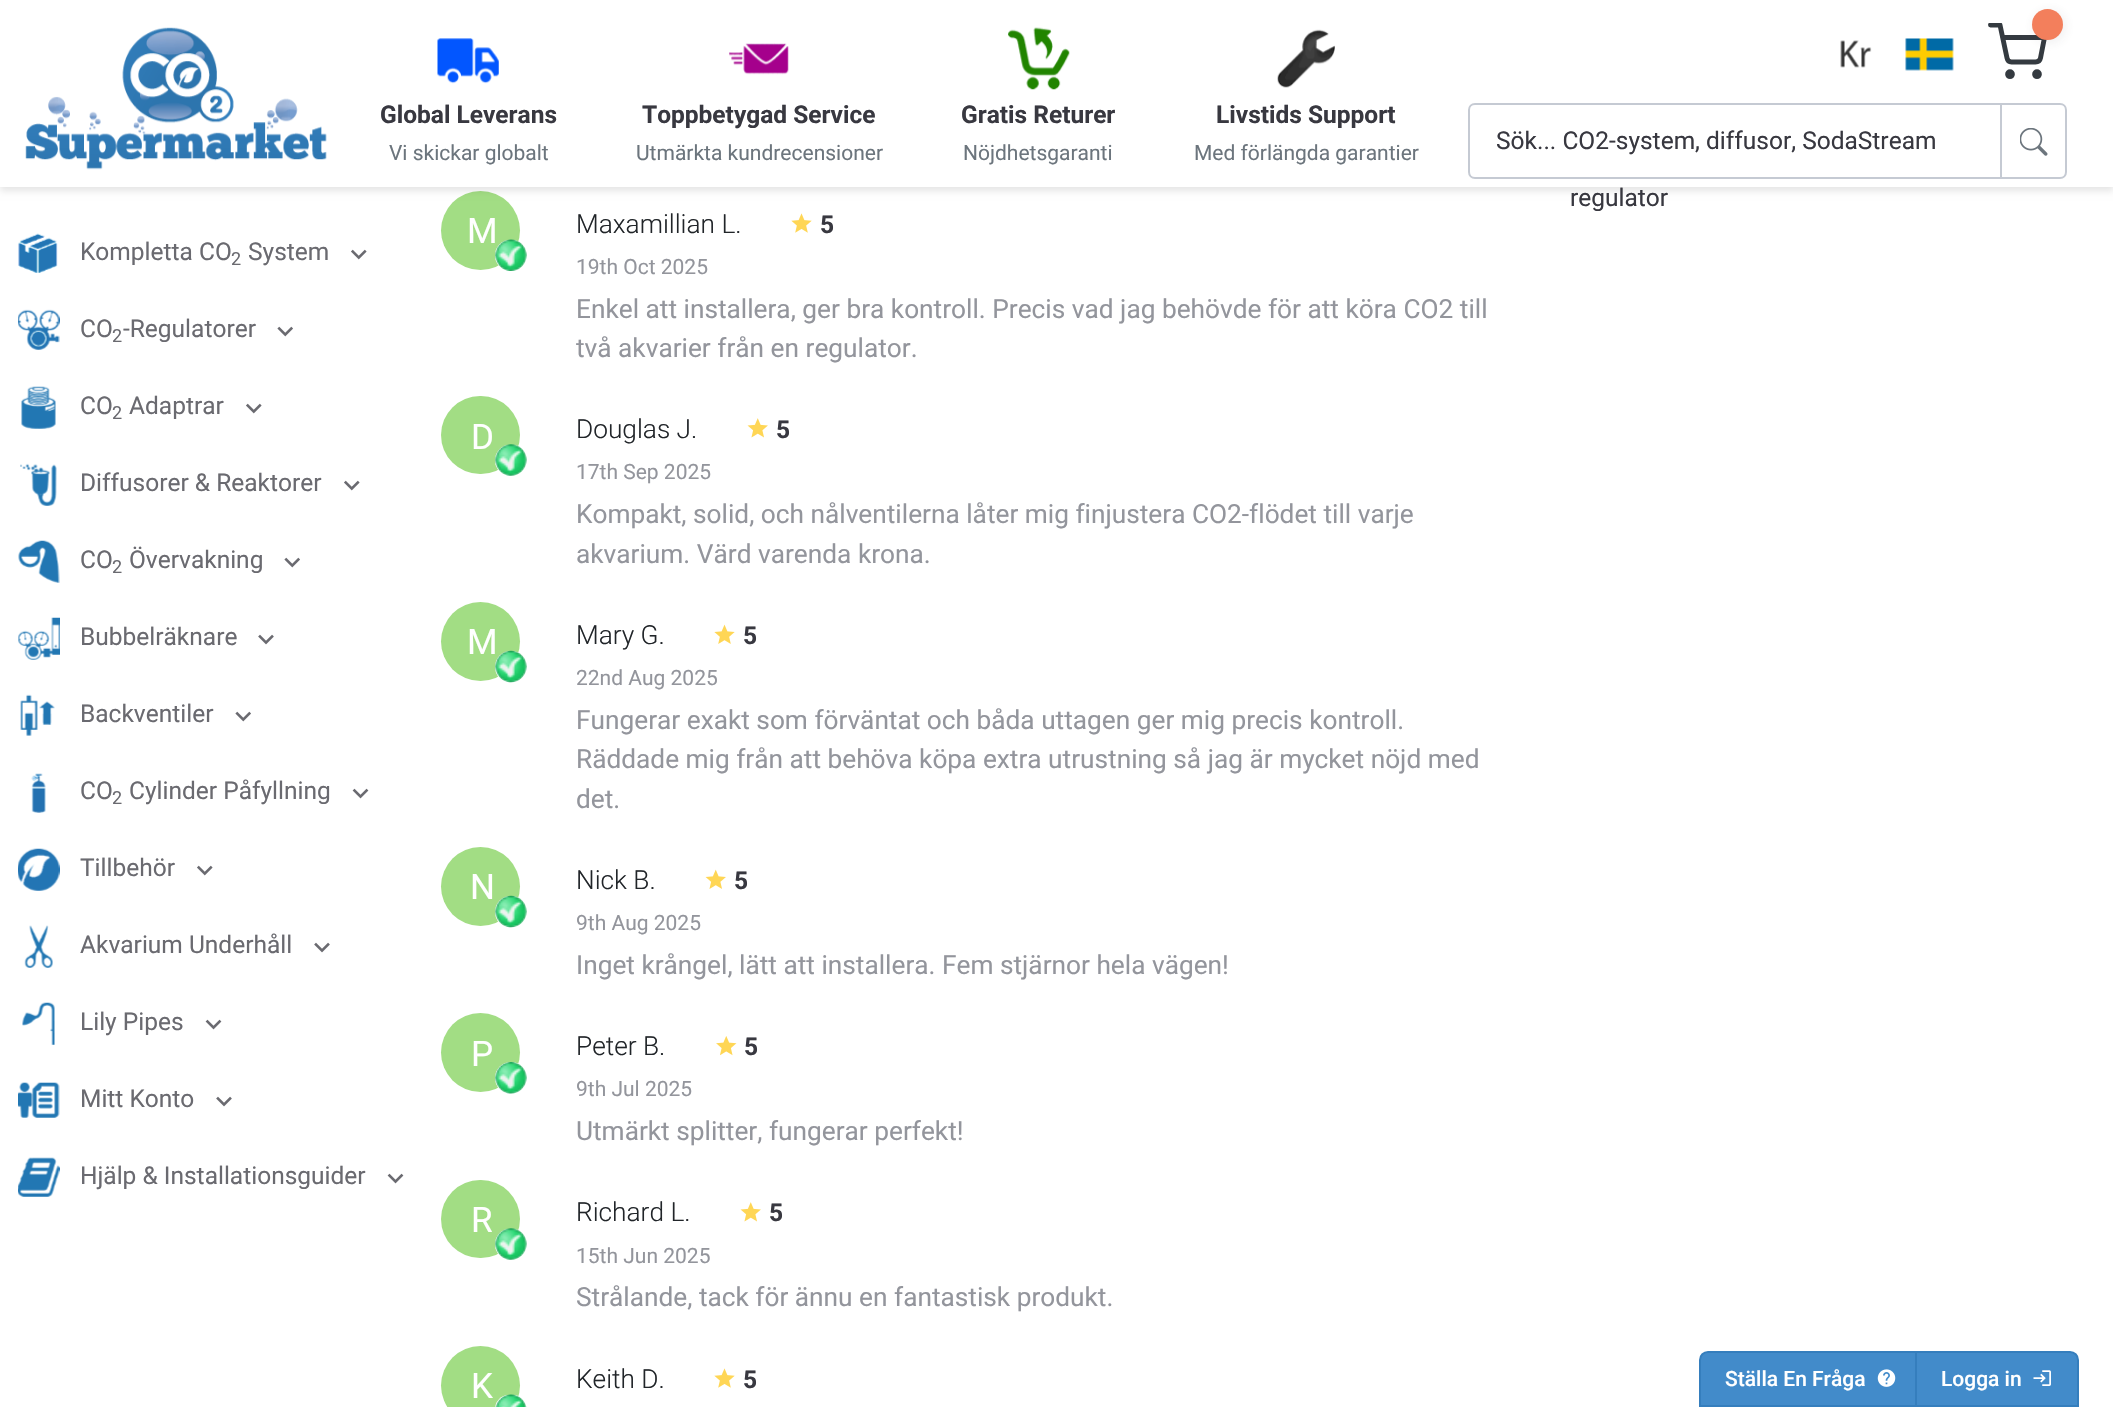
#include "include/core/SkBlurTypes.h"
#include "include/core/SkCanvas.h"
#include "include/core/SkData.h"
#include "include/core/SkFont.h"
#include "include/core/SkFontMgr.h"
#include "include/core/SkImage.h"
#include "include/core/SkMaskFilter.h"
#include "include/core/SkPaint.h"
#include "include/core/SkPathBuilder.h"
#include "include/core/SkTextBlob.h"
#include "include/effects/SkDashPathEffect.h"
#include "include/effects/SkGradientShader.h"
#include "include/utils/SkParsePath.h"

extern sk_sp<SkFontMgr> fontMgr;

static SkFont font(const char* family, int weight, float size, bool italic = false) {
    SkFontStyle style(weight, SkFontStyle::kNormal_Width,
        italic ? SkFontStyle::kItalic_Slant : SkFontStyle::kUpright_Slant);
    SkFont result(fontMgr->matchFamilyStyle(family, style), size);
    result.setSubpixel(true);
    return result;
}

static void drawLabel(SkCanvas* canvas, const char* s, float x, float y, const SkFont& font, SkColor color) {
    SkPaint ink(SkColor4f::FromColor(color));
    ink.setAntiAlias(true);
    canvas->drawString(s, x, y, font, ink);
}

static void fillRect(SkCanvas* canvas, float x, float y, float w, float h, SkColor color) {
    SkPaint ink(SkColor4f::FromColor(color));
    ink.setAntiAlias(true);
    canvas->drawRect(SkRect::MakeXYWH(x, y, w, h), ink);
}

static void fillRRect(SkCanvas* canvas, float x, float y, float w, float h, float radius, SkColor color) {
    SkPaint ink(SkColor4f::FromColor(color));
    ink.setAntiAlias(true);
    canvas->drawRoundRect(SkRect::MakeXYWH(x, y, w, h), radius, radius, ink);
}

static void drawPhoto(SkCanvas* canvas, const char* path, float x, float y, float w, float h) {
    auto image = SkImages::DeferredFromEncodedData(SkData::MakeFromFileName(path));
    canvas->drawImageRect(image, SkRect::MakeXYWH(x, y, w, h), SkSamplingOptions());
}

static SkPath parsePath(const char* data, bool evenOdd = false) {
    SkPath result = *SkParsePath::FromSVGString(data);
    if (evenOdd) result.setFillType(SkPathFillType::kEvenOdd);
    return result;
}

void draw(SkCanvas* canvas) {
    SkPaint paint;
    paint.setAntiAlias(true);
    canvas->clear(0xFFFFFFFF);
    paint.setColor(0xFFA2DD84);
    canvas->drawCircle(480.5f, 230.5f, 39.5f, paint);
    paint.setColor(0x1A000000);
    paint.setMaskFilter(SkMaskFilter::MakeBlur(kNormal_SkBlurStyle, 3.5f));
    canvas->drawRect(SkRect::MakeXYWH(0, 4, 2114, 187), paint);
    paint.setMaskFilter(nullptr);
    fillRect(canvas, 0, 0, 2113, 187, 0xFFFFFFFF);
    drawPhoto(canvas, "assets/img1.png", 25, 27, 302, 143);
    drawPhoto(canvas, "assets/img2.png", 437, 38, 62, 46);
    SkFont font1 = font("Roboto", 700, 24.5f);
    drawLabel(canvas, "Global Leverans", 380, 123, font1, 0xFF383840);
    SkFont font2 = font("Roboto", 400, 21);
    drawLabel(canvas, "Vi skickar globalt", 389, 160, font2, 0xFF6C757D);
    drawPhoto(canvas, "assets/img3.png", 729, 43, 60, 32);
    drawLabel(canvas, "Toppbetygad Service", 642, 123, font1, 0xFF383840);
    drawLabel(canvas, "Utmärkta kundrecensioner", 636, 160, font2, 0xFF6C757D);
    drawPhoto(canvas, "assets/img4.png", 1008, 27, 62, 63);
    drawLabel(canvas, "Gratis Returer", 961, 123, font1, 0xFF383840);
    drawLabel(canvas, "Nöjdhetsgaranti", 963, 160, font2, 0xFF6C757D);
    drawPhoto(canvas, "assets/img5.png", 1277, 29, 58, 59);
    drawLabel(canvas, "Livstids Support", 1216, 123, font1, 0xFF383840);
    drawLabel(canvas, "Med förlängda garantier", 1194, 160, font2, 0xFF6C757D);
    drawPhoto(canvas, "assets/img6.png", 1840, 40, 32, 28);
    drawPhoto(canvas, "assets/img7.png", 1905, 38, 49, 33);
    canvas->save();
    canvas->clipRect(SkRect::MakeXYWH(1988, 23, 61, 61));
    paint.setStroke(true);
    paint.setStrokeWidth(4.9f);
    paint.setStrokeCap(SkPaint::kRound_Cap);
    paint.setStrokeJoin(SkPaint::kRound_Join);
    paint.setColor(0xFF343A40);
    canvas->drawPath(parsePath("M1990.5 25H2000L2007 58C2007.5 60.5 2009.5 62 2011.5 62H2035.5C2038 62 2040 60.5 2040.5 58L2044.5 37.5H2002.5"), paint);
    canvas->restore();
    paint.setStroke(false);
    paint.setColor(0x17383840);
    paint.setMaskFilter(SkMaskFilter::MakeBlur(kNormal_SkBlurStyle, 6));
    canvas->drawRoundRect(SkRect::MakeXYWH(2034, 11, 31, 31), 15.5f, 15.5f, paint);
    paint.setMaskFilter(nullptr);
    paint.setColor(0xFFF37F5C);
    canvas->drawCircle(2047.5f, 24.5f, 15.5f, paint);
    paint.setStroke(true);
    paint.setStrokeCap(SkPaint::kButt_Cap);
    paint.setStrokeJoin(SkPaint::kMiter_Join);
    paint.setColor(0xFF343A40);
    canvas->drawCircle(2010, 74.2f, 2.4f, paint);
    canvas->drawCircle(2037, 74.2f, 2.4f, paint);
    paint.setStrokeWidth(2);
    paint.setColor(0xFFC5CAD3);
    canvas->drawPath(parsePath("M1475 104H2001V178H1475C1471.5 178 1469 175.5 1469 172V110C1469 106.5 1471.5 104 1475 104Z"), paint);
    SkFont font3 = font("Roboto", 400, 24.5f);
    drawLabel(canvas, "Sök... CO2-system, diffusor, SodaStream", 1496, 149, font3, 0xFF383840);
    canvas->drawPath(parsePath("M2001 104H2060C2063.5 104 2066 106.5 2066 110V172C2066 175.5 2063.5 178 2060 178H2001Z"), paint);
    drawPhoto(canvas, "assets/img8.png", 2020, 128, 28, 28);
    drawPhoto(canvas, "assets/img9.png", 18, 233, 40, 40);
    drawLabel(canvas, "Kompletta CO", 80, 260, font3, 0xFF6A6A70);
    SkFont font4 = font("Roboto", 400, 18);
    drawLabel(canvas, "2", 231, 265, font4, 0xFF6A6A70);
    drawLabel(canvas, "System", 248, 260, font3, 0xFF6A6A70);
    drawPhoto(canvas, "assets/img10.png", 351, 249, 16, 11);
    drawPhoto(canvas, "assets/img11.png", 18, 309, 42, 41);
    drawLabel(canvas, "CO", 80, 337, font3, 0xFF6A6A70);
    drawLabel(canvas, "2", 112, 342, font4, 0xFF6A6A70);
    drawLabel(canvas, "-Regulatorer", 123, 337, font3, 0xFF6A6A70);
    drawPhoto(canvas, "assets/img12.png", 277, 326, 16, 11);
    drawPhoto(canvas, "assets/img13.png", 21, 386, 35, 43);
    drawLabel(canvas, "CO", 80, 414, font3, 0xFF6A6A70);
    drawLabel(canvas, "2", 112, 419, font4, 0xFF6A6A70);
    drawLabel(canvas, "Adaptrar", 129, 414, font3, 0xFF6A6A70);
    drawPhoto(canvas, "assets/img10.png", 246, 403, 16, 11);
    drawPhoto(canvas, "assets/img14.png", 20, 463, 37, 43);
    drawLabel(canvas, "Diffusorer & Reaktorer", 80, 491, font3, 0xFF6A6A70);
    drawPhoto(canvas, "assets/img10.png", 344, 480, 16, 11);
    drawPhoto(canvas, "assets/img15.png", 18, 540, 42, 43);
    drawLabel(canvas, "CO", 80, 568, font3, 0xFF6A6A70);
    drawLabel(canvas, "2", 112, 573, font4, 0xFF6A6A70);
    drawLabel(canvas, "Övervakning", 129, 568, font3, 0xFF6A6A70);
    drawPhoto(canvas, "assets/img12.png", 284, 557, 16, 11);
    drawPhoto(canvas, "assets/img16.png", 18, 617, 42, 43);
    drawLabel(canvas, "Bubbelräknare", 80, 645, font3, 0xFF6A6A70);
    drawPhoto(canvas, "assets/img17.png", 258, 634, 16, 11);
    drawPhoto(canvas, "assets/img18.png", 20, 694, 35, 42);
    drawLabel(canvas, "Backventiler", 80, 722, font3, 0xFF6A6A70);
    drawPhoto(canvas, "assets/img12.png", 235, 711, 16, 11);
    drawPhoto(canvas, "assets/img19.png", 31, 773, 15, 40);
    drawLabel(canvas, "CO", 80, 799, font3, 0xFF6A6A70);
    drawLabel(canvas, "2", 112, 804, font4, 0xFF6A6A70);
    drawLabel(canvas, "Cylinder Påfyllning", 129, 799, font3, 0xFF6A6A70);
    drawPhoto(canvas, "assets/img20.png", 352, 788, 17, 11);
    drawPhoto(canvas, "assets/img21.png", 18, 848, 42, 43);
    drawLabel(canvas, "Tillbehör", 80, 876, font3, 0xFF6A6A70);
    drawPhoto(canvas, "assets/img10.png", 197, 865, 16, 11);
    drawPhoto(canvas, "assets/img22.png", 24, 925, 29, 43);
    drawLabel(canvas, "Akvarium Underhåll", 80, 953, font3, 0xFF6A6A70);
    drawPhoto(canvas, "assets/img17.png", 314, 942, 16, 11);
    drawPhoto(canvas, "assets/img23.png", 22, 1002, 33, 43);
    drawLabel(canvas, "Lily Pipes", 80, 1030, font3, 0xFF6A6A70);
    drawPhoto(canvas, "assets/img20.png", 205, 1019, 17, 11);
    drawPhoto(canvas, "assets/img24.png", 18, 1082, 42, 36);
    drawLabel(canvas, "Mitt Konto", 80, 1107, font3, 0xFF6A6A70);
    drawPhoto(canvas, "assets/img17.png", 216, 1096, 16, 11);
    drawPhoto(canvas, "assets/img25.png", 18, 1157, 42, 40);
    drawLabel(canvas, "Hjälp & Installationsguider", 80, 1184, font3, 0xFF6A6A70);
    drawPhoto(canvas, "assets/img20.png", 387, 1173, 17, 11);
    drawLabel(canvas, "regulator", 1570, 206, font3, 0xFF383840);
    SkFont font5 = font("Roboto", 400, 35);
    drawLabel(canvas, "M", 467, 243, font5, 0xFFFFFFFF);
    fillRRect(canvas, 495, 240, 32, 31, 15.5f, 0xFFFFFFFF);
    drawPhoto(canvas, "assets/img26.png", 495, 239, 32, 32);
    SkFont font6 = font("Roboto", 300, 26.25f);
    drawLabel(canvas, "Maxamillian L.", 576, 233, font6, 0xFF212529);
    drawPhoto(canvas, "assets/img27.png", 791, 213, 21, 20);
    drawLabel(canvas, "5", 820, 233, font1, 0xFF383840);
    drawLabel(canvas, "19th Oct 2025", 576, 274, font2, 0xFF93959C);
    SkFont font7 = font("Roboto", 400, 26.25f);
    drawLabel(canvas, "Enkel att installera, ger bra kontroll. Precis vad jag behövde för att köra CO2 till", 576, 318, font7, 0xFF93959C);
    drawLabel(canvas, "två akvarier från en regulator.", 576, 357, font7, 0xFF93959C);
    fillRRect(canvas, 441, 396, 79, 78, 39, 0xFFA2DD84);
    drawLabel(canvas, "D", 471, 449, font5, 0xFFFFFFFF);
    fillRRect(canvas, 495, 445, 32, 31, 15.5f, 0xFFFFFFFF);
    drawPhoto(canvas, "assets/img28.png", 495, 444, 32, 32);
    drawLabel(canvas, "Douglas J.", 576, 438, font6, 0xFF212529);
    drawPhoto(canvas, "assets/img29.png", 747, 418, 21, 20);
    drawLabel(canvas, "5", 776, 438, font1, 0xFF383840);
    drawLabel(canvas, "17th Sep 2025", 576, 479, font2, 0xFF93959C);
    drawLabel(canvas, "Kompakt, solid, och nålventilerna låter mig finjustera CO2-flödet till varje", 576, 523, font7, 0xFF93959C);
    drawLabel(canvas, "akvarium. Värd varenda krona.", 576, 563, font7, 0xFF93959C);
    paint.setStroke(false);
    paint.setColor(0xFFA2DD84);
    canvas->drawCircle(480.5f, 641.5f, 39.5f, paint);
    drawLabel(canvas, "M", 467, 654, font5, 0xFFFFFFFF);
    paint.setColor(0xFFFFFFFF);
    canvas->drawCircle(511, 667, 16, paint);
    drawPhoto(canvas, "assets/img30.png", 495, 650, 32, 33);
    drawLabel(canvas, "Mary G.", 576, 644, font6, 0xFF212529);
    drawPhoto(canvas, "assets/img31.png", 714, 624, 21, 20);
    drawLabel(canvas, "5", 743, 644, font1, 0xFF383840);
    drawLabel(canvas, "22nd Aug 2025", 576, 685, font2, 0xFF93959C);
    drawLabel(canvas, "Fungerar exakt som förväntat och båda uttagen ger mig precis kontroll.", 576, 729, font7, 0xFF93959C);
    drawLabel(canvas, "Räddade mig från att behöva köpa extra utrustning så jag är mycket nöjd med", 576, 768, font7, 0xFF93959C);
    drawLabel(canvas, "det.", 576, 808, font7, 0xFF93959C);
    paint.setColor(0xFFA2DD84);
    canvas->drawCircle(480.5f, 886.5f, 39.5f, paint);
    drawLabel(canvas, "N", 470, 899, font5, 0xFFFFFFFF);
    paint.setColor(0xFFFFFFFF);
    canvas->drawCircle(511, 912, 16, paint);
    drawPhoto(canvas, "assets/img30.png", 495, 895, 32, 33);
    drawLabel(canvas, "Nick B.", 576, 889, font6, 0xFF212529);
    drawPhoto(canvas, "assets/img32.png", 705, 869, 21, 20);
    drawLabel(canvas, "5", 734, 889, font1, 0xFF383840);
    drawLabel(canvas, "9th Aug 2025", 576, 930, font2, 0xFF93959C);
    drawLabel(canvas, "Inget krångel, lätt att installera. Fem stjärnor hela vägen!", 576, 974, font7, 0xFF93959C);
    paint.setColor(0xFFA2DD84);
    canvas->drawCircle(480.5f, 1052.5f, 39.5f, paint);
    drawLabel(canvas, "P", 471, 1066, font5, 0xFFFFFFFF);
    paint.setColor(0xFFFFFFFF);
    canvas->drawCircle(511, 1078, 16, paint);
    drawPhoto(canvas, "assets/img33.png", 495, 1062, 32, 32);
    drawLabel(canvas, "Peter B.", 576, 1055, font6, 0xFF212529);
    drawPhoto(canvas, "assets/img34.png", 716, 1036, 21, 20);
    drawLabel(canvas, "5", 744, 1055, font1, 0xFF383840);
    drawLabel(canvas, "9th Jul 2025", 576, 1096, font2, 0xFF93959C);
    drawLabel(canvas, "Utmärkt splitter, fungerar perfekt!", 576, 1140, font7, 0xFF93959C);
    fillRRect(canvas, 441, 1180, 79, 78, 39, 0xFFA2DD84);
    drawLabel(canvas, "R", 471, 1232, font5, 0xFFFFFFFF);
    fillRRect(canvas, 495, 1229, 32, 31, 15.5f, 0xFFFFFFFF);
    drawPhoto(canvas, "assets/img28.png", 495, 1228, 32, 32);
    drawLabel(canvas, "Richard L.", 576, 1221, font6, 0xFF212529);
    drawPhoto(canvas, "assets/img29.png", 740, 1202, 21, 20);
    drawLabel(canvas, "5", 769, 1221, font1, 0xFF383840);
    drawLabel(canvas, "15th Jun 2025", 576, 1263, font2, 0xFF93959C);
    drawLabel(canvas, "Strålande, tack för ännu en fantastisk produkt.", 576, 1306, font7, 0xFF93959C);
    paint.setColor(0xFFA2DD84);
    canvas->drawCircle(480.5f, 1385.5f, 39.5f, paint);
    drawLabel(canvas, "K", 471, 1398, font5, 0xFFFFFFFF);
    fillRRect(canvas, 495, 1395, 32, 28, 15.5f, 0xFFFFFFFF);
    drawPhoto(canvas, "assets/img35.png", 495, 1394, 32, 13);
    drawLabel(canvas, "Keith D.", 576, 1388, font6, 0xFF212529);
    drawPhoto(canvas, "assets/img27.png", 714, 1368, 21, 20);
    drawLabel(canvas, "5", 743, 1388, font1, 0xFF383840);
    paint.setColor(0xFF428BCA);
    canvas->drawPath(parsePath("M1708 1352H1922V1406H1700V1360C1700 1355.5 1703.5 1352 1708 1352Z"), paint);
    paint.setStroke(true);
    paint.setColor(0xFF357EBD);
    canvas->drawPath(parsePath("M1708 1352H1922V1406H1700V1360C1700 1355.5 1703.5 1352 1708 1352Z"), paint);
    SkFont font8 = font("Roboto", 500, 21);
    drawLabel(canvas, "Ställa En Fråga", 1725, 1386, font8, 0xFFFFFFFF);
    drawPhoto(canvas, "assets/img36.png", 1877, 1369, 19, 18);
    paint.setStroke(false);
    paint.setColor(0xFF428BCA);
    canvas->drawPath(parsePath("M1916 1352H2070C2074.5 1352 2078 1355.5 2078 1360V1406H1916Z"), paint);
    paint.setStroke(true);
    paint.setColor(0xFF357EBD);
    canvas->drawPath(parsePath("M1916 1352H2070C2074.5 1352 2078 1355.5 2078 1360V1406H1916Z"), paint);
    drawLabel(canvas, "Logga in", 1941, 1386, font8, 0xFFFFFFFF);
    drawPhoto(canvas, "assets/img37.png", 2033, 1370, 18, 16);
}
